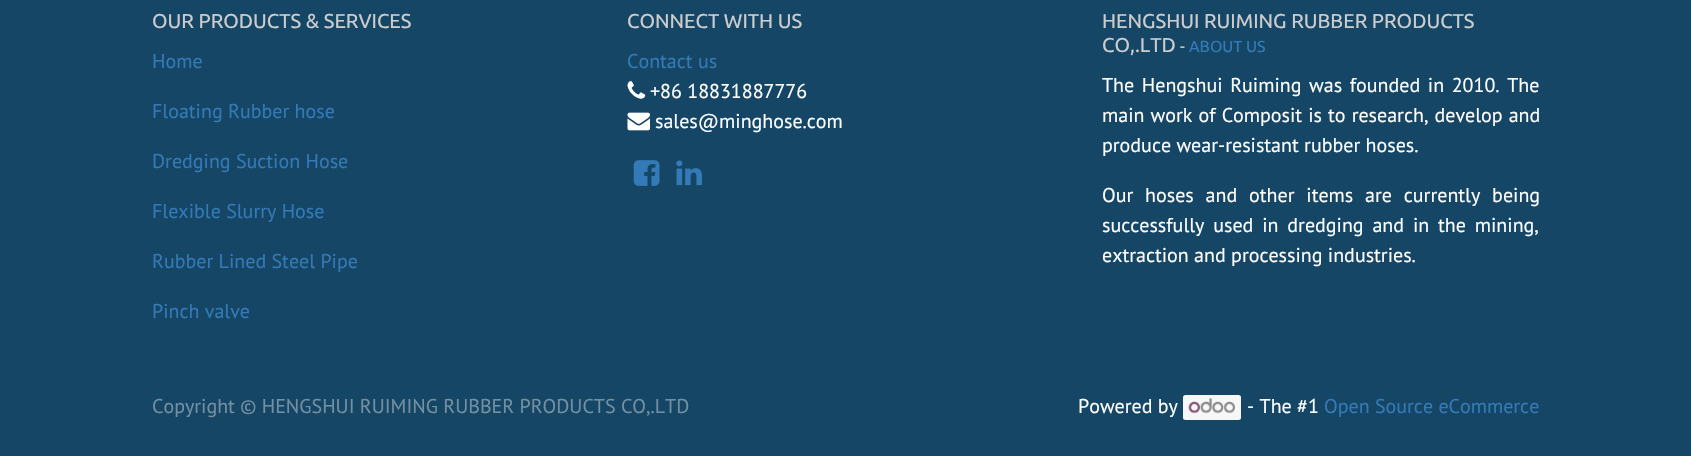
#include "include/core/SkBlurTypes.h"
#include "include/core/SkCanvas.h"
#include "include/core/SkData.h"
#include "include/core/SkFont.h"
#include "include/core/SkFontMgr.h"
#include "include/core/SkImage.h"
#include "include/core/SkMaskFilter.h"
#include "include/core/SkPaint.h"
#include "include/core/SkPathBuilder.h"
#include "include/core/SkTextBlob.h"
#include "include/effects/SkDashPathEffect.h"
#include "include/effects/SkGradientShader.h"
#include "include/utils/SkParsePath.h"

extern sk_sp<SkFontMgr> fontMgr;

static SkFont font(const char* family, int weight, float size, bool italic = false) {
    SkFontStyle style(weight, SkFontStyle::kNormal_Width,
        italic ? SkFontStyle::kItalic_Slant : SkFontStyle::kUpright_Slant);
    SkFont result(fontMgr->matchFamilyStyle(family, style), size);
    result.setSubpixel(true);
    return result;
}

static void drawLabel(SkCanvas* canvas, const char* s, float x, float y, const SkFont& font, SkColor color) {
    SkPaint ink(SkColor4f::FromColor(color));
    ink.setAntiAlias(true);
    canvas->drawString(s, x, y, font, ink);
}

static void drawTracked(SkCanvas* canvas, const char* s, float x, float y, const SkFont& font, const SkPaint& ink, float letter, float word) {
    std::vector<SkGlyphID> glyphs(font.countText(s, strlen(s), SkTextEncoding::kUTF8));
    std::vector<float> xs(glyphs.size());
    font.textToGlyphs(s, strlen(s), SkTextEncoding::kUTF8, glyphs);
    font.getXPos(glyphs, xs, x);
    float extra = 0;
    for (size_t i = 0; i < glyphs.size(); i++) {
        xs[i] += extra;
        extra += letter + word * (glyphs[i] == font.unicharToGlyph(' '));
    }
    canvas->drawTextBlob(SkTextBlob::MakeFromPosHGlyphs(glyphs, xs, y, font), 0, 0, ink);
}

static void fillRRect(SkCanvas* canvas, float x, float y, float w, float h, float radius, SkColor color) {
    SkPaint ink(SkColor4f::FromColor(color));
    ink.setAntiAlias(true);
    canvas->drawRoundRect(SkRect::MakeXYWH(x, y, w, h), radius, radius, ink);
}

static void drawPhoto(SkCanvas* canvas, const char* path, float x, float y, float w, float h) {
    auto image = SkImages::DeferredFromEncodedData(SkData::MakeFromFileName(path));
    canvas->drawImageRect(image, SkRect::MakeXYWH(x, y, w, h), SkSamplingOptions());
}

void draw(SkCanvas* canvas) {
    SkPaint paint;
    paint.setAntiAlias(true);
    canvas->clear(0xFF164666);
    SkFont font1 = font("Ubuntu", 400, 20);
    drawLabel(canvas, "OUR PRODUCTS & SERVICES", 152, 28, font1, 0xFFCCCCCC);
    SkFont font2 = font("PT Sans", 400, 20);
    drawLabel(canvas, "Home", 152, 68, font2, 0xFF337AB7);
    drawLabel(canvas, "Floating Rubber hose", 152, 118, font2, 0xFF337AB7);
    drawLabel(canvas, "Dredging Suction Hose", 152, 168, font2, 0xFF337AB7);
    drawLabel(canvas, "Flexible Slurry Hose", 152, 218, font2, 0xFF337AB7);
    drawLabel(canvas, "Rubber Lined Steel Pipe", 152, 268, font2, 0xFF337AB7);
    drawLabel(canvas, "Pinch valve", 152, 318, font2, 0xFF337AB7);
    drawLabel(canvas, "CONNECT WITH US", 627, 28, font1, 0xFFCCCCCC);
    drawLabel(canvas, "Contact us", 627, 68, font2, 0xFF337AB7);
    drawPhoto(canvas, "assets/img1.png", 627, 81, 19, 18);
    drawLabel(canvas, "+86 18831887776", 650, 98, font2, 0xFFFFFFFF);
    drawPhoto(canvas, "assets/img2.png", 627, 112, 23, 19);
    drawLabel(canvas, "sales@minghose.com", 655, 128, font2, 0xFFFFFFFF);
    drawPhoto(canvas, "assets/img3.png", 633, 160, 27, 26);
    drawPhoto(canvas, "assets/img4.png", 676, 160, 26, 26);
    drawLabel(canvas, "HENGSHUI RUIMING RUBBER PRODUCTS", 1102, 28, font1, 0xFFCCCCCC);
    drawLabel(canvas, "CO,.LTD", 1102, 52, font1, 0xFFCCCCCC);
    SkFont font3 = font("Ubuntu", 400, 16);
    drawLabel(canvas, "-", 1180, 52, font3, 0xFFCCCCCC);
    drawLabel(canvas, "ABOUT US", 1189, 52, font3, 0xFF337AB7);
    paint.setColor(0xFFFFFFFF);
    drawTracked(canvas, "The Hengshui Ruiming was founded in 2010. The", 1102, 92, font2, paint, 0, 2.25f);
    drawTracked(canvas, "main work of Composit is to research, develop and", 1102, 122, font2, paint, 0, 0.75f);
    drawLabel(canvas, "produce wear-resistant rubber hoses.", 1102, 152, font2, 0xFFFFFFFF);
    drawTracked(canvas, "Our hoses and other items are currently being", 1102, 202, font2, paint, 0, 6.5f);
    drawTracked(canvas, "successfully used in dredging and in the mining,", 1102, 232, font2, paint, 0, 3.5f);
    drawLabel(canvas, "extraction and processing industries.", 1102, 262, font2, 0xFFFFFFFF);
    drawLabel(canvas, "Copyright © HENGSHUI RUIMING RUBBER PRODUCTS CO,.LTD", 152, 413, font2, 0xFF7390A3);
    drawLabel(canvas, "Powered by", 1078, 413, font2, 0xFFFFFFFF);
    fillRRect(canvas, 1183, 395, 58, 25, 2.5f, 0xFFF7F7F7);
    drawPhoto(canvas, "assets/img5.png", 1188, 398, 47, 16);
    drawLabel(canvas, "- The #1", 1247, 413, font2, 0xFFFFFFFF);
    drawLabel(canvas, "Open Source eCommerce", 1324, 413, font2, 0xFF337AB7);
}
